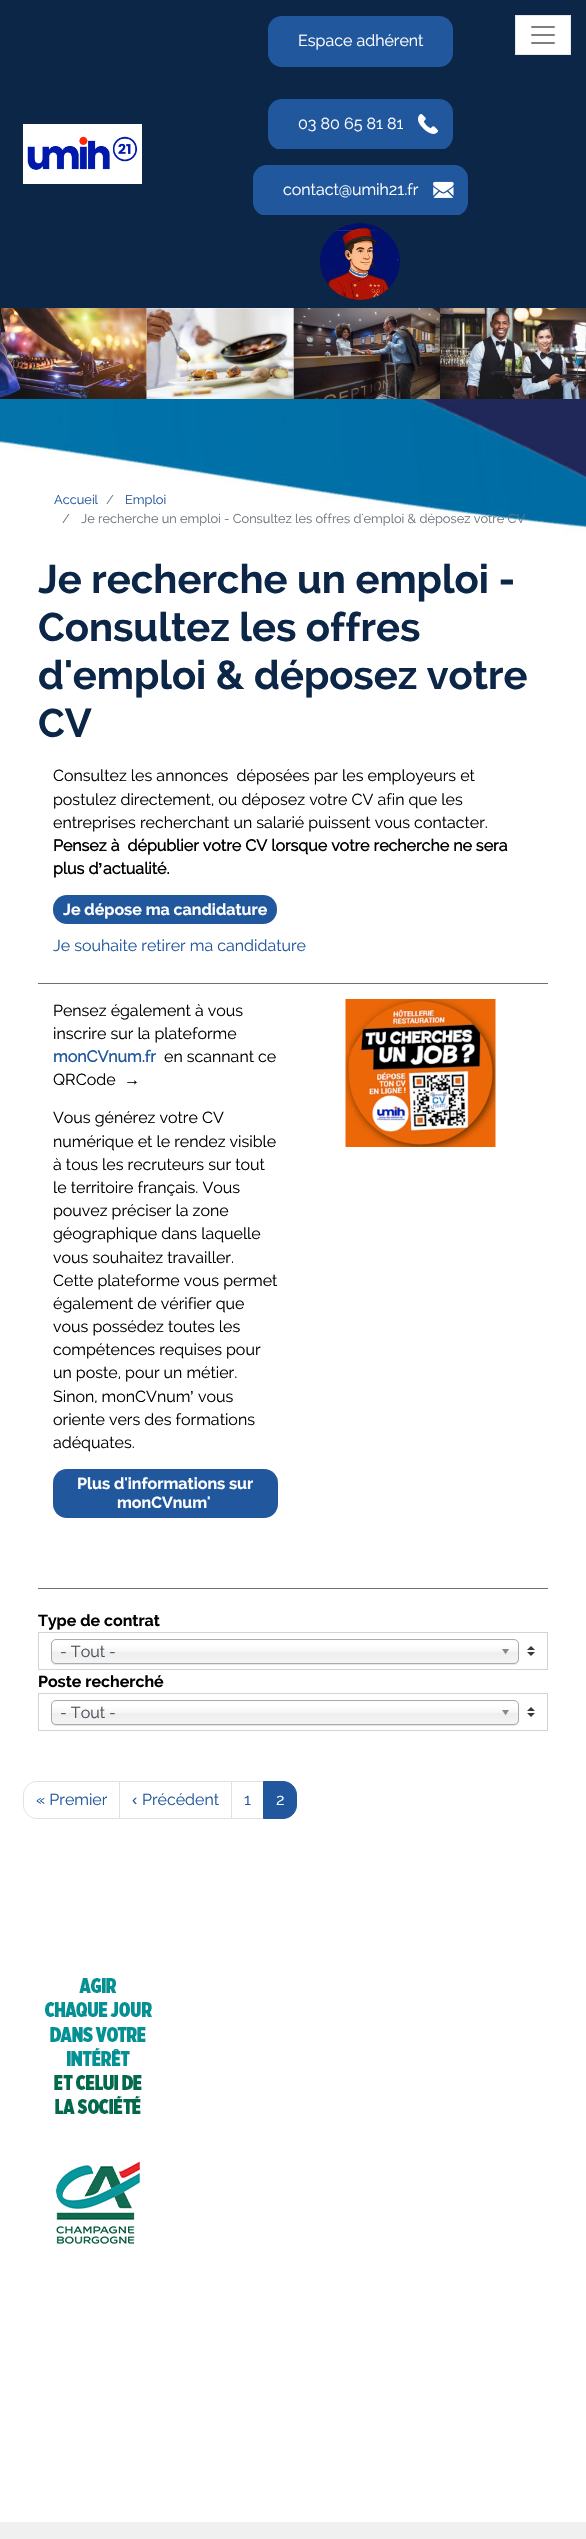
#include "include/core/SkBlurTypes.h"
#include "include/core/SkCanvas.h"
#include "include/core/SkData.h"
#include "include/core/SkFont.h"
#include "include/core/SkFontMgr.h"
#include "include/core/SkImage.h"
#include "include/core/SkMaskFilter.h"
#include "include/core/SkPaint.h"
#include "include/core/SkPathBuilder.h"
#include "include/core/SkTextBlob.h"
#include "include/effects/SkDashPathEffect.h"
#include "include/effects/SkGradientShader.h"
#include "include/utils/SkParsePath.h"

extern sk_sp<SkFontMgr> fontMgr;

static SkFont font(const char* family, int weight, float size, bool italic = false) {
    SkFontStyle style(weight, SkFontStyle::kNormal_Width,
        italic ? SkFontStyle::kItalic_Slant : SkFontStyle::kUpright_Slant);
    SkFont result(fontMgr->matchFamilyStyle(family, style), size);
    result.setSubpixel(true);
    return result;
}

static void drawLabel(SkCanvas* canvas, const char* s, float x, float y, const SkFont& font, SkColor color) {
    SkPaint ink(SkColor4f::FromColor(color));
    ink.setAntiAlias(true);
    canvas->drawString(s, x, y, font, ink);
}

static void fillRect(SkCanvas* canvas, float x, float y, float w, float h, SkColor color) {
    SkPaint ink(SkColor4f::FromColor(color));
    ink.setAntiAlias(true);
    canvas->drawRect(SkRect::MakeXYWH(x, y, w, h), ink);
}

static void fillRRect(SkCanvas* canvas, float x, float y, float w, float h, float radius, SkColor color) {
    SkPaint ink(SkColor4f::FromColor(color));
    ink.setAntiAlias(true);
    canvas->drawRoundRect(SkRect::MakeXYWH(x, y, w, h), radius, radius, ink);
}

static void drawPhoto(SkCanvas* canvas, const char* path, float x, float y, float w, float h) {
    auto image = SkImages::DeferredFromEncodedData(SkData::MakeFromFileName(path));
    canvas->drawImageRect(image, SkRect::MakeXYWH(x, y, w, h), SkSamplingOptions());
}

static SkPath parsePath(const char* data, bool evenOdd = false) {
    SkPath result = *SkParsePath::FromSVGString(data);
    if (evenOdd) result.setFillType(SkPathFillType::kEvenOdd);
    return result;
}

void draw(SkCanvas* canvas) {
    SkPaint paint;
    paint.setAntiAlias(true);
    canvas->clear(0xFFFFFFFF);
    fillRect(canvas, 0, 0, 586, 308, 0xFF0C2648);
    drawPhoto(canvas, "assets/img1.png", 23, 124, 119, 60);
    fillRRect(canvas, 268, 16, 185, 51, 14, 0xFF21579D);
    SkFont font1 = font("Raleway", 400, 16);
    drawLabel(canvas, "Espace adhérent", 298, 46, font1, 0xFFFFFFFF);
    canvas->save();
    canvas->clipRect(SkRect::MakeXYWH(268, 99, 185, 50));
    fillRRect(canvas, 268, 99, 185, 51, 14, 0xFF21579D);
    canvas->restore();
    drawLabel(canvas, "03 80 65 81 81", 298, 129, font1, 0xFFFFFFFF);
    drawPhoto(canvas, "assets/img2.png", 418, 114, 20, 20);
    canvas->save();
    canvas->clipRect(SkRect::MakeXYWH(253, 165, 215, 50));
    fillRRect(canvas, 253, 165, 215, 51, 14, 0xFF21579D);
    canvas->restore();
    drawLabel(canvas, "contact@umih21.fr", 283, 195, font1, 0xFFFFFFFF);
    drawPhoto(canvas, "assets/img3.png", 433, 181, 21, 17);
    drawPhoto(canvas, "assets/img4.png", 320, 223, 80, 77);
    paint.setColor(0xFFFFFFFF);
    canvas->drawRect(SkRect::MakeXYWH(515.5f, 15.5f, 55, 39), paint);
    paint.setStroke(true);
    paint.setStrokeWidth(1);
    paint.setColor(0xFFE6E6E6);
    canvas->drawRect(SkRect::MakeXYWH(515.5f, 15.5f, 55, 39), paint);
    drawPhoto(canvas, "assets/img5.png", 531, 26, 24, 18);
    drawPhoto(canvas, "assets/img6.png", 0, 308, 586, 91);
    drawPhoto(canvas, "assets/img7.png", 0, 399, 586, 134);
    SkFont font2 = font("Raleway", 400, 12.8f);
    drawLabel(canvas, "Accueil", 54, 504, font2, 0xFF21579D);
    drawLabel(canvas, "/", 106, 504, font2, 0xFF6C757D);
    drawLabel(canvas, "Emploi", 125, 504, font2, 0xFF21579D);
    drawLabel(canvas, "/", 62, 523, font2, 0xFF6C757D);
    drawLabel(canvas, "Je recherche un emploi - Consultez les offres d'emploi & déposez votre CV", 81, 523, font2, 0xFF6C757D);
    SkFont font3 = font("Raleway", 700, 40);
    drawLabel(canvas, "Je recherche un emploi -", 38, 593, font3, 0xFF0C2648);
    drawLabel(canvas, "Consultez les offres", 38, 641, font3, 0xFF0C2648);
    drawLabel(canvas, "d'emploi & déposez votre", 38, 689, font3, 0xFF0C2648);
    drawLabel(canvas, "CV", 38, 737, font3, 0xFF0C2648);
    fillRect(canvas, 38, 983, 510, 1, 0xFF707070);
    drawLabel(canvas, "Consultez les annonces  déposées par les employeurs et", 53, 781, font1, 0xFF000000);
    drawLabel(canvas, "postulez directement, ou déposez votre CV afin que les", 53, 805, font1, 0xFF000000);
    drawLabel(canvas, "entreprises recherchant un salarié puissent vous contacter.", 53, 828, font1, 0xFF000000);
    SkFont font4 = font("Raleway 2", 700, 16);
    drawLabel(canvas, "Pensez à  dépublier votre CV lorsque votre recherche ne sera", 53, 851, font4, 0xFF000000);
    drawLabel(canvas, "plus d", 53, 874, font4, 0xFF000000);
    SkFont font5 = font("Liberation Sans", 700, 16);
    drawLabel(canvas, "’", 98, 874, font5, 0xFF000000);
    drawLabel(canvas, "actualité.", 103, 874, font4, 0xFF000000);
    fillRRect(canvas, 53, 895, 224, 29, 14, 0xFF21579D);
    SkFont font6 = font("Raleway", 700, 16);
    drawLabel(canvas, "Je dépose ma candidature", 63, 915, font6, 0xFFFFFFFF);
    drawLabel(canvas, "Je souhaite retirer ma candidature", 53, 951, font1, 0xFF21579D);
    fillRect(canvas, 38, 1588, 510, 1, 0xFF707070);
    drawLabel(canvas, "Pensez également à vous", 53, 1016, font1, 0xFF000000);
    drawLabel(canvas, "inscrire sur la plateforme", 53, 1039, font1, 0xFF000000);
    drawLabel(canvas, "monCVnum.fr", 53, 1062, font4, 0xFF21579D);
    drawLabel(canvas, "en scannant ce", 164, 1062, font1, 0xFF000000);
    drawLabel(canvas, "QRCode", 53, 1085, font1, 0xFF000000);
    drawLabel(canvas, "→", 124, 1085, font5, 0xFF000000);
    drawLabel(canvas, "Vous générez votre CV", 53, 1123, font1, 0xFF000000);
    drawLabel(canvas, "numérique et le rendez visible", 53, 1147, font1, 0xFF000000);
    drawLabel(canvas, "à tous les recruteurs sur tout", 53, 1170, font1, 0xFF000000);
    drawLabel(canvas, "le territoire français. Vous", 53, 1193, font1, 0xFF000000);
    drawLabel(canvas, "pouvez préciser la zone", 53, 1216, font1, 0xFF000000);
    drawLabel(canvas, "géographique dans laquelle", 53, 1239, font1, 0xFF000000);
    drawLabel(canvas, "vous souhaitez travailler.", 53, 1263, font1, 0xFF000000);
    drawLabel(canvas, "Cette plateforme vous permet", 53, 1286, font1, 0xFF000000);
    drawLabel(canvas, "également de vérifier que", 53, 1309, font1, 0xFF000000);
    drawLabel(canvas, "vous possédez toutes les", 53, 1332, font1, 0xFF000000);
    drawLabel(canvas, "compétences requises pour", 53, 1355, font1, 0xFF000000);
    drawLabel(canvas, "un poste, pour un métier.", 53, 1378, font1, 0xFF000000);
    drawLabel(canvas, "Sinon, monCVnum", 53, 1402, font1, 0xFF000000);
    SkFont font7 = font("Liberation Sans", 400, 16);
    drawLabel(canvas, "’", 190, 1402, font7, 0xFF000000);
    drawLabel(canvas, "vous", 198, 1402, font1, 0xFF000000);
    drawLabel(canvas, "oriente vers des formations", 53, 1425, font1, 0xFF000000);
    drawLabel(canvas, "adéquates.", 53, 1448, font1, 0xFF000000);
    fillRRect(canvas, 53, 1469, 225, 49, 14, 0xFF21579D);
    drawLabel(canvas, "Plus d'informations sur", 77, 1489, font6, 0xFFFFFFFF);
    drawLabel(canvas, "monCVnum'", 117, 1508, font6, 0xFFFFFFFF);
    drawPhoto(canvas, "assets/img8.png", 345, 999, 151, 148);
    drawLabel(canvas, "Type de contrat", 38, 1626, font6, 0xFF000000);
    drawPhoto(canvas, "assets/img9.png", 527, 1646, 8, 10);
    paint.setColor(0xFFCED4DA);
    canvas->drawRect(SkRect::MakeXYWH(38.5f, 1632.5f, 509, 37), paint);
    paint.setStroke(false);
    paint.setColor(0x1A000000);
    paint.setMaskFilter(SkMaskFilter::MakeBlur(kNormal_SkBlurStyle, 0.5f));
    canvas->drawRoundRect(SkRect::MakeXYWH(51, 1640, 468, 25), 5, 5, paint);
    paint.setMaskFilter(nullptr);
    {
        const SkColor colors[] = {0xFFFFFFFF, 0xFFF6F6F6, 0xFFEEEEEE, 0xFFF4F4F4};
        const float stops[] = {0.2f, 0.5f, 0.52f, 1};
        const SkPoint ends[] = {{285, 1640}, {285, 1663}};
        paint.setShader(SkGradientShader::MakeLinear(ends, colors, stops, 4, SkTileMode::kClamp));
        paint.setAlpha(255);
    }
    canvas->drawRoundRect(SkRect::MakeXYWH(52, 1640, 466, 23), 4, 4, paint);
    paint.setStroke(true);
    paint.setShader(nullptr);
    paint.setColor(0xFFAAAAAA);
    canvas->drawRoundRect(SkRect::MakeXYWH(51.5f, 1639.5f, 467, 24), 4.5f, 4.5f, paint);
    drawLabel(canvas, "- Tout -", 60, 1657, font1, 0xFF495057);
    drawPhoto(canvas, "assets/img10.png", 502, 1649, 7, 6);
    drawLabel(canvas, "Poste recherché", 38, 1687, font6, 0xFF000000);
    drawPhoto(canvas, "assets/img9.png", 527, 1707, 8, 10);
    paint.setColor(0xFFCED4DA);
    canvas->drawRect(SkRect::MakeXYWH(38.5f, 1693.5f, 509, 37), paint);
    paint.setStroke(false);
    paint.setColor(0x1A000000);
    paint.setMaskFilter(SkMaskFilter::MakeBlur(kNormal_SkBlurStyle, 0.5f));
    canvas->drawRoundRect(SkRect::MakeXYWH(51, 1701, 468, 25), 5, 5, paint);
    paint.setMaskFilter(nullptr);
    {
        const SkColor colors[] = {0xFFFFFFFF, 0xFFF6F6F6, 0xFFEEEEEE, 0xFFF4F4F4};
        const float stops[] = {0.2f, 0.5f, 0.52f, 1};
        const SkPoint ends[] = {{285, 1701}, {285, 1724}};
        paint.setShader(SkGradientShader::MakeLinear(ends, colors, stops, 4, SkTileMode::kClamp));
        paint.setAlpha(255);
    }
    canvas->drawRoundRect(SkRect::MakeXYWH(52, 1701, 466, 23), 4, 4, paint);
    paint.setStroke(true);
    paint.setShader(nullptr);
    paint.setColor(0xFFAAAAAA);
    canvas->drawRoundRect(SkRect::MakeXYWH(51.5f, 1700.5f, 467, 24), 4.5f, 4.5f, paint);
    drawLabel(canvas, "- Tout -", 60, 1718, font1, 0xFF495057);
    drawPhoto(canvas, "assets/img10.png", 502, 1710, 7, 6);
    paint.setColor(0xFFDEE2E6);
    canvas->drawPath(parsePath("M37 1781.5H119.5V1818.5H37C29.5 1818.5 23.5 1812.5 23.5 1805V1795C23.5 1787.5 29.5 1781.5 37 1781.5Z"), paint);
    drawLabel(canvas, "« Premier", 36, 1805, font1, 0xFF21579D);
    canvas->drawRect(SkRect::MakeXYWH(119.5f, 1781.5f, 112, 37), paint);
    drawLabel(canvas, "‹", 132, 1805, font7, 0xFF21579D);
    drawLabel(canvas, "Précédent", 142, 1805, font1, 0xFF21579D);
    canvas->drawRect(SkRect::MakeXYWH(231.5f, 1781.5f, 32, 37), paint);
    drawLabel(canvas, "1", 244, 1805, font1, 0xFF21579D);
    paint.setStroke(false);
    paint.setColor(0xFF21579D);
    canvas->drawPath(parsePath("M263.5 1781.5H283C290.5 1781.5 296.5 1787.5 296.5 1795V1805C296.5 1812.5 290.5 1818.5 283 1818.5H263.5Z"), paint);
    paint.setStroke(true);
    canvas->drawPath(parsePath("M263.5 1781.5H283C290.5 1781.5 296.5 1787.5 296.5 1795V1805C296.5 1812.5 290.5 1818.5 283 1818.5H263.5Z"), paint);
    drawLabel(canvas, "2", 276, 1805, font1, 0xFFFFFFFF);
    drawPhoto(canvas, "assets/img11.png", 45, 1978, 107, 266);
    fillRect(canvas, 0, 2522, 586, 17, 0xFFF0F0F0);
}
